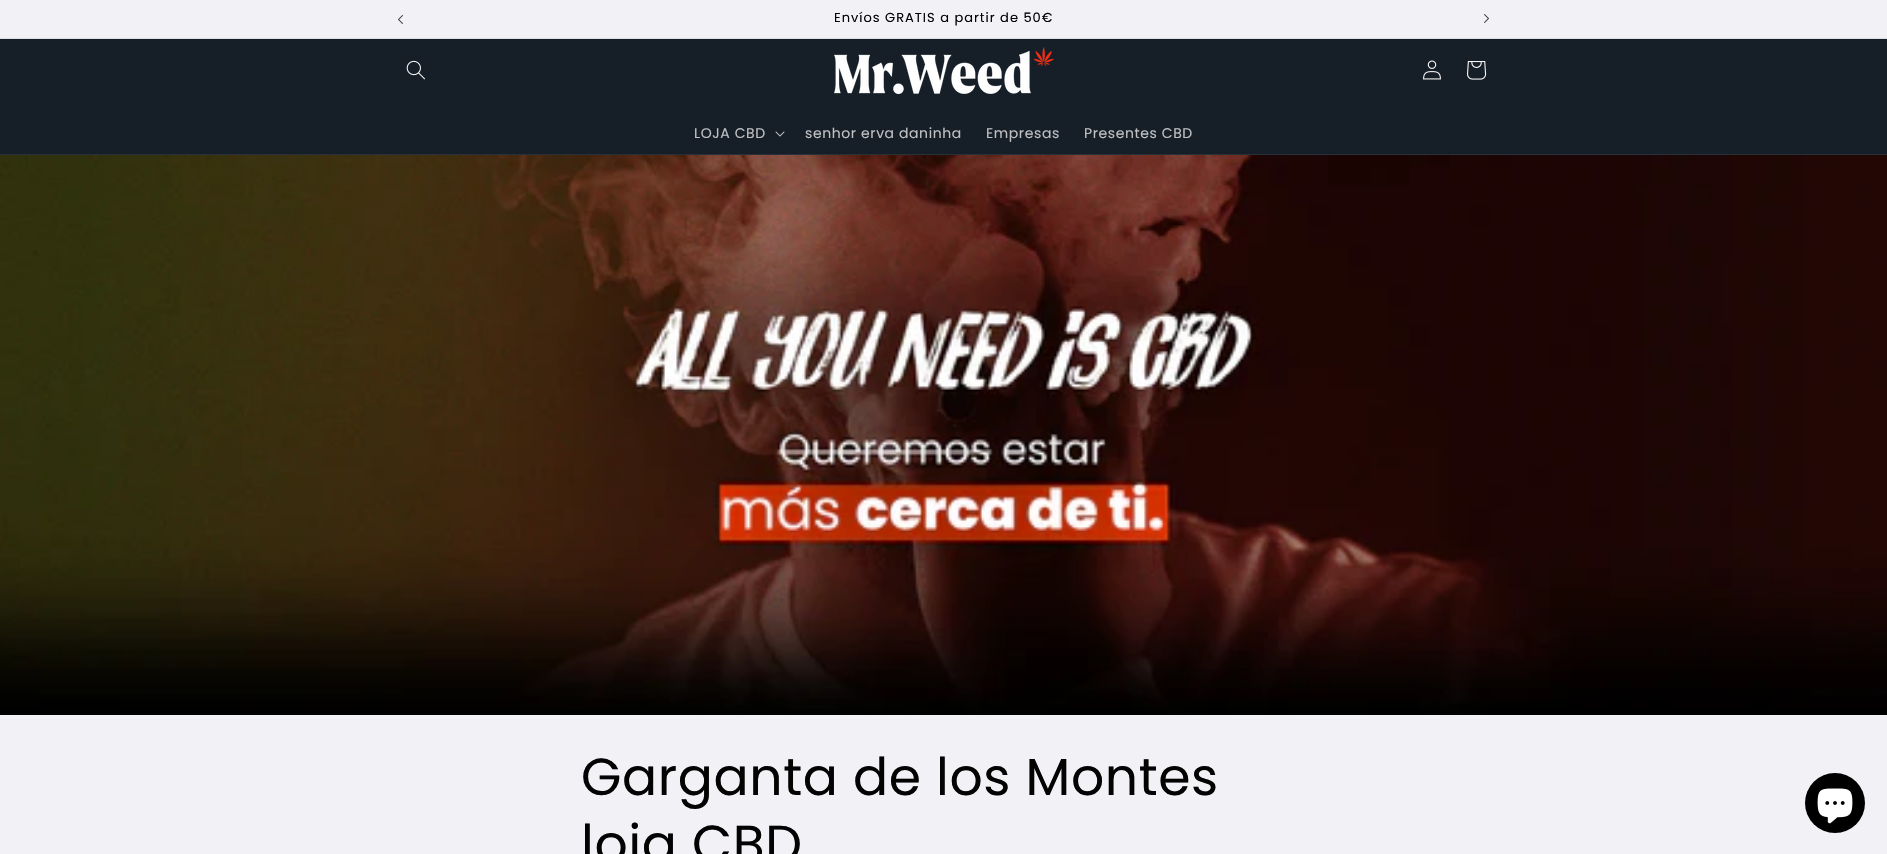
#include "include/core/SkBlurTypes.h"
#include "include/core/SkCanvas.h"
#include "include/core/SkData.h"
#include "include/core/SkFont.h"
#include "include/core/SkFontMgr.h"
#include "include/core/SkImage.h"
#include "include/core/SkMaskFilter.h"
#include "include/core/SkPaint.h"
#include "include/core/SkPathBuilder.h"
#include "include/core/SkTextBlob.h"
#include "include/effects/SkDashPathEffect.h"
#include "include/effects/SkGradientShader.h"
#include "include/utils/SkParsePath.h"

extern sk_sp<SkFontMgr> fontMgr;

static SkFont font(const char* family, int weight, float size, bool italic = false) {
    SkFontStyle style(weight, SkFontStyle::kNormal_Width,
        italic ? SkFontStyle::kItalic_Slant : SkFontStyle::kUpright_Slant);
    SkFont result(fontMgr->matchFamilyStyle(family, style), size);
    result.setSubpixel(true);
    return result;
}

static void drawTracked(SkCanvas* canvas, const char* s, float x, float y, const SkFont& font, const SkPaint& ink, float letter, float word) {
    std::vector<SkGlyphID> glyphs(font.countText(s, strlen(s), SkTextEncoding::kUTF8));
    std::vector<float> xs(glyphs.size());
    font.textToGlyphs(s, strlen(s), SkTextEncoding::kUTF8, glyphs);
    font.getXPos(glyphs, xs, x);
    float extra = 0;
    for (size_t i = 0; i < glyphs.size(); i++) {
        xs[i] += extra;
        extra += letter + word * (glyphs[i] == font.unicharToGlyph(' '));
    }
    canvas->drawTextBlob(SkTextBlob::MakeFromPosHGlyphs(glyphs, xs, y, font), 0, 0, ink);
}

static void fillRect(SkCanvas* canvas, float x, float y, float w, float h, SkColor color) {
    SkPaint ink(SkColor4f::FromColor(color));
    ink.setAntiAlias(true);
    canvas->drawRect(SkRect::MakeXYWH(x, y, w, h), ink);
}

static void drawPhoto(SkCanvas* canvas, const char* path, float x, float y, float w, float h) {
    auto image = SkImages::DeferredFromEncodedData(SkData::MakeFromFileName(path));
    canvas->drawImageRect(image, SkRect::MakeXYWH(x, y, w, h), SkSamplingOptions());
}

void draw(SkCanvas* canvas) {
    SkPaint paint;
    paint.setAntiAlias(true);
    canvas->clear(0xFFF2F2F6);
    fillRect(canvas, 0, 38, 1887, 1, 0xFFDFDFE3);
    drawPhoto(canvas, "assets/img1.png", 398, 15, 5, 9);
    SkFont font1 = font("Poppins", 400, 13);
    paint.setColor(0xFF030303);
    drawTracked(canvas, "Envíos GRATIS a partir de 50€", 834, 22, font1, paint, 1, 0);
    drawPhoto(canvas, "assets/img2.png", 1484, 14, 5, 9);
    fillRect(canvas, 0, 39, 1887, 115, 0xFF161F28);
    fillRect(canvas, 0, 154, 1887, 1, 0xFF283038);
    drawPhoto(canvas, "assets/img3.png", 406, 60, 19, 20);
    drawPhoto(canvas, "assets/img4.png", 834, 47, 220, 47);
    drawPhoto(canvas, "assets/img5.png", 1423, 60, 18, 20);
    drawPhoto(canvas, "assets/img6.png", 1467, 61, 20, 19);
    SkFont font2 = font("Poppins", 400, 14);
    paint.setColor(0xFFC0C0C3);
    drawTracked(canvas, "LOJA CBD", 694, 138, font2, paint, 0.6f, 0);
    drawPhoto(canvas, "assets/img7.png", 775, 131, 10, 6);
    drawTracked(canvas, "senhor erva daninha", 805, 138, font2, paint, 0.6f, 0);
    drawTracked(canvas, "Empresas", 986, 138, font2, paint, 0.6f, 0);
    drawTracked(canvas, "Presentes CBD", 1084, 138, font2, paint, 0.6f, 0);
    drawPhoto(canvas, "assets/img8.png", 0, 155, 1887, 560);
    SkFont font3 = font("Poppins", 400, 52);
    paint.setColor(0xFF030303);
    drawTracked(canvas, "Garganta de los Montes", 581, 795, font3, paint, 0.6f, 0);
    drawTracked(canvas, "loja CBD", 581, 862, font3, paint, 0.6f, 0);
    paint.setColor(0xFF000000);
    canvas->drawCircle(1835, 803, 30, paint);
    drawPhoto(canvas, "assets/img9.png", 1817, 788, 36, 36);
}
